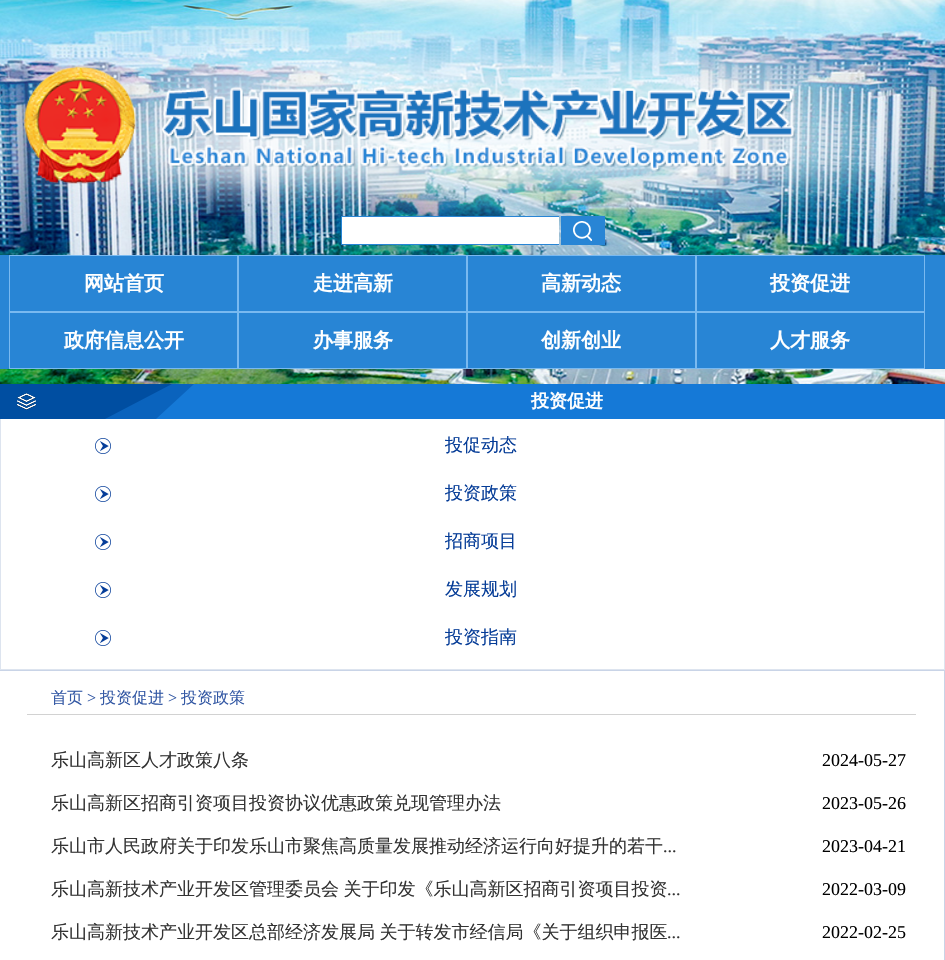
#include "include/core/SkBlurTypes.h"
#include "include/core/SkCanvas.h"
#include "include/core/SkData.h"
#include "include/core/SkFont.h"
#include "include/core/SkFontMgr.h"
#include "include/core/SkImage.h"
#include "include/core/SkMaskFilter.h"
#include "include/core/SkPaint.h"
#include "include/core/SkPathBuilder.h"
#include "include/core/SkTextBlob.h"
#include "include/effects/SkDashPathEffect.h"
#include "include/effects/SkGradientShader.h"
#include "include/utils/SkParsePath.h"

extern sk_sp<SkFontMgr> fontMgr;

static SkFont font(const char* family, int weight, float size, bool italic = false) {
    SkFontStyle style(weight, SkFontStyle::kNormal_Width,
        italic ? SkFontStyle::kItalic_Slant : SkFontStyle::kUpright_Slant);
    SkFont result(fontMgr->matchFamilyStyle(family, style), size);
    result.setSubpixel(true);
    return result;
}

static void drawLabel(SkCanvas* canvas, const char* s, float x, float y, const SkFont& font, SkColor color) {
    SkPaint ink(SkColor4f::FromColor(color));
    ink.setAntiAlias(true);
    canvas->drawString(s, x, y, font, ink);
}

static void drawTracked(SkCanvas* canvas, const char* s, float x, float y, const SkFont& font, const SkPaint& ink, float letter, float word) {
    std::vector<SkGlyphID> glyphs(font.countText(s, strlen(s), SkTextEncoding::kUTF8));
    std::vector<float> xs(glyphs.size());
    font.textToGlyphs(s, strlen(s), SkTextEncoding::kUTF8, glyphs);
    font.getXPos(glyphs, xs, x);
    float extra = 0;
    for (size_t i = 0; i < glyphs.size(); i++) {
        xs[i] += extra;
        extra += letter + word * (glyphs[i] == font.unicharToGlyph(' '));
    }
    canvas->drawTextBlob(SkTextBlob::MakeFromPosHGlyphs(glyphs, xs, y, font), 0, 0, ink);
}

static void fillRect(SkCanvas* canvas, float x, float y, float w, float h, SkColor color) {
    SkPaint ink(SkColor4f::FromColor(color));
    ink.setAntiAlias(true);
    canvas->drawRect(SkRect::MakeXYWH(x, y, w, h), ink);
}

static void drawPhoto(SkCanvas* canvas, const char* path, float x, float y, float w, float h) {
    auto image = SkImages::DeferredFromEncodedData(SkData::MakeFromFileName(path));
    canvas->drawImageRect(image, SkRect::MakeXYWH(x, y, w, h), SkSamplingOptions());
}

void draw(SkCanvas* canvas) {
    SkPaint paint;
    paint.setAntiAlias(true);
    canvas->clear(0xFFFFFFFF);
    drawPhoto(canvas, "assets/img1.png", 0, 0, 945, 384);
    drawPhoto(canvas, "assets/img2.png", 0, 10, 945, 206);
    fillRect(canvas, 342, 217, 217, 27, 0xFFFFFFFF);
    fillRect(canvas, 341, 216, 218, 1, 0xFF2885D5);
    fillRect(canvas, 341, 244, 218, 1, 0xFF2885D5);
    fillRect(canvas, 341, 216, 1, 29, 0xFF2885D5);
    drawPhoto(canvas, "assets/img3.png", 561, 216, 44, 29);
    fillRect(canvas, 0, 255, 945, 114, 0xFF2885D5);
    paint.setStroke(true);
    paint.setStrokeWidth(1);
    paint.setColor(0xFF79B9F0);
    canvas->drawRect(SkRect::MakeXYWH(9.5f, 255.5f, 228, 56), paint);
    SkFont font1 = font("WenQuanYi Zen Hei", 700, 20);
    drawLabel(canvas, "网站首页", 84, 290, font1, 0xFFFFFFFF);
    canvas->drawRect(SkRect::MakeXYWH(238.5f, 255.5f, 228, 56), paint);
    drawLabel(canvas, "走进高新", 313, 290, font1, 0xFFFFFFFF);
    canvas->drawRect(SkRect::MakeXYWH(467.5f, 255.5f, 228, 56), paint);
    drawLabel(canvas, "高新动态", 541, 290, font1, 0xFFFFFFFF);
    canvas->drawRect(SkRect::MakeXYWH(696.5f, 255.5f, 228, 56), paint);
    drawLabel(canvas, "投资促进", 770, 290, font1, 0xFFFFFFFF);
    canvas->drawRect(SkRect::MakeXYWH(9.5f, 312.5f, 228, 56), paint);
    drawLabel(canvas, "政府信息公开", 64, 347, font1, 0xFFFFFFFF);
    canvas->drawRect(SkRect::MakeXYWH(238.5f, 312.5f, 228, 56), paint);
    drawLabel(canvas, "办事服务", 313, 347, font1, 0xFFFFFFFF);
    canvas->drawRect(SkRect::MakeXYWH(467.5f, 312.5f, 228, 56), paint);
    drawLabel(canvas, "创新创业", 541, 347, font1, 0xFFFFFFFF);
    canvas->drawRect(SkRect::MakeXYWH(696.5f, 312.5f, 228, 56), paint);
    drawLabel(canvas, "人才服务", 770, 347, font1, 0xFFFFFFFF);
    fillRect(canvas, 194, 384, 751, 35, 0xFF1579D7);
    drawPhoto(canvas, "assets/img4.png", 0, 384, 194, 35);
    SkFont font2 = font("WenQuanYi Zen Hei", 700, 18);
    drawLabel(canvas, "投资促进", 531, 407, font2, 0xFFFFFFFF);
    fillRect(canvas, 944, 419, 1, 251, 0xFFDDE4EF);
    fillRect(canvas, 0, 669, 945, 1, 0xFFDDE4EF);
    fillRect(canvas, 0, 419, 1, 251, 0xFFDDE4EF);
    drawPhoto(canvas, "assets/img5.png", 95, 438, 16, 16);
    SkFont font3 = font("WenQuanYi Zen Hei", 500, 18);
    drawLabel(canvas, "投促动态", 445, 451, font3, 0xFF053C97);
    drawPhoto(canvas, "assets/img5.png", 95, 486, 16, 16);
    drawLabel(canvas, "投资政策", 445, 499, font3, 0xFF053C97);
    drawPhoto(canvas, "assets/img5.png", 95, 534, 16, 16);
    drawLabel(canvas, "招商项目", 445, 547, font3, 0xFF053C97);
    drawPhoto(canvas, "assets/img5.png", 95, 582, 16, 16);
    drawLabel(canvas, "发展规划", 445, 595, font3, 0xFF053C97);
    drawPhoto(canvas, "assets/img5.png", 95, 630, 16, 16);
    drawLabel(canvas, "投资指南", 445, 643, font3, 0xFF053C97);
    paint.setColor(0xFFC9D4E7);
    canvas->drawRect(SkRect::MakeXYWH(-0.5f, 670.5f, 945, 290), paint);
    fillRect(canvas, 27, 714, 889, 1, 0xFFD2D2D2);
    SkFont font4 = font("WenQuanYi Zen Hei", 500, 16);
    drawLabel(canvas, "首页", 51, 703, font4, 0xFF3358A4);
    SkFont font5 = font("Liberation Serif", 400, 16);
    drawLabel(canvas, ">", 87, 703, font5, 0xFF3358A4);
    drawLabel(canvas, "投资促进", 100, 703, font4, 0xFF3358A4);
    drawLabel(canvas, ">", 168, 703, font5, 0xFF3358A4);
    drawLabel(canvas, "投资政策", 181, 703, font4, 0xFF3358A4);
    drawLabel(canvas, "乐山高新区人才政策八条", 51, 766, font3, 0xFF333333);
    SkFont font6 = font("Liberation Serif", 400, 18);
    drawLabel(canvas, "2024-05-27", 822, 766, font6, 0xFF000000);
    drawLabel(canvas, "乐山高新区招商引资项目投资协议优惠政策兑现管理办法", 51, 809, font3, 0xFF333333);
    drawLabel(canvas, "2023-05-26", 822, 809, font6, 0xFF000000);
    drawLabel(canvas, "乐山市人民政府关于印发乐山市聚焦高质量发展推动经济运行向好提升的若干", 51, 852, font3, 0xFF333333);
    drawLabel(canvas, "...", 663, 852, font6, 0xFF333333);
    drawLabel(canvas, "2023-04-21", 822, 852, font6, 0xFF000000);
    paint.setStroke(false);
    paint.setColor(0xFF333333);
    drawTracked(canvas, "乐山高新技术产业开发区管理委员会 关于印发《乐山高新区招商引资项目投资", 51, 895, font3, paint, 0, -1);
    drawLabel(canvas, "...", 667, 895, font6, 0xFF333333);
    drawLabel(canvas, "2022-03-09", 822, 895, font6, 0xFF000000);
    drawTracked(canvas, "乐山高新技术产业开发区总部经济发展局 关于转发市经信局《关于组织申报医", 51, 938, font3, paint, 0, -1);
    drawLabel(canvas, "...", 667, 938, font6, 0xFF333333);
    drawLabel(canvas, "2022-02-25", 822, 938, font6, 0xFF000000);
}
